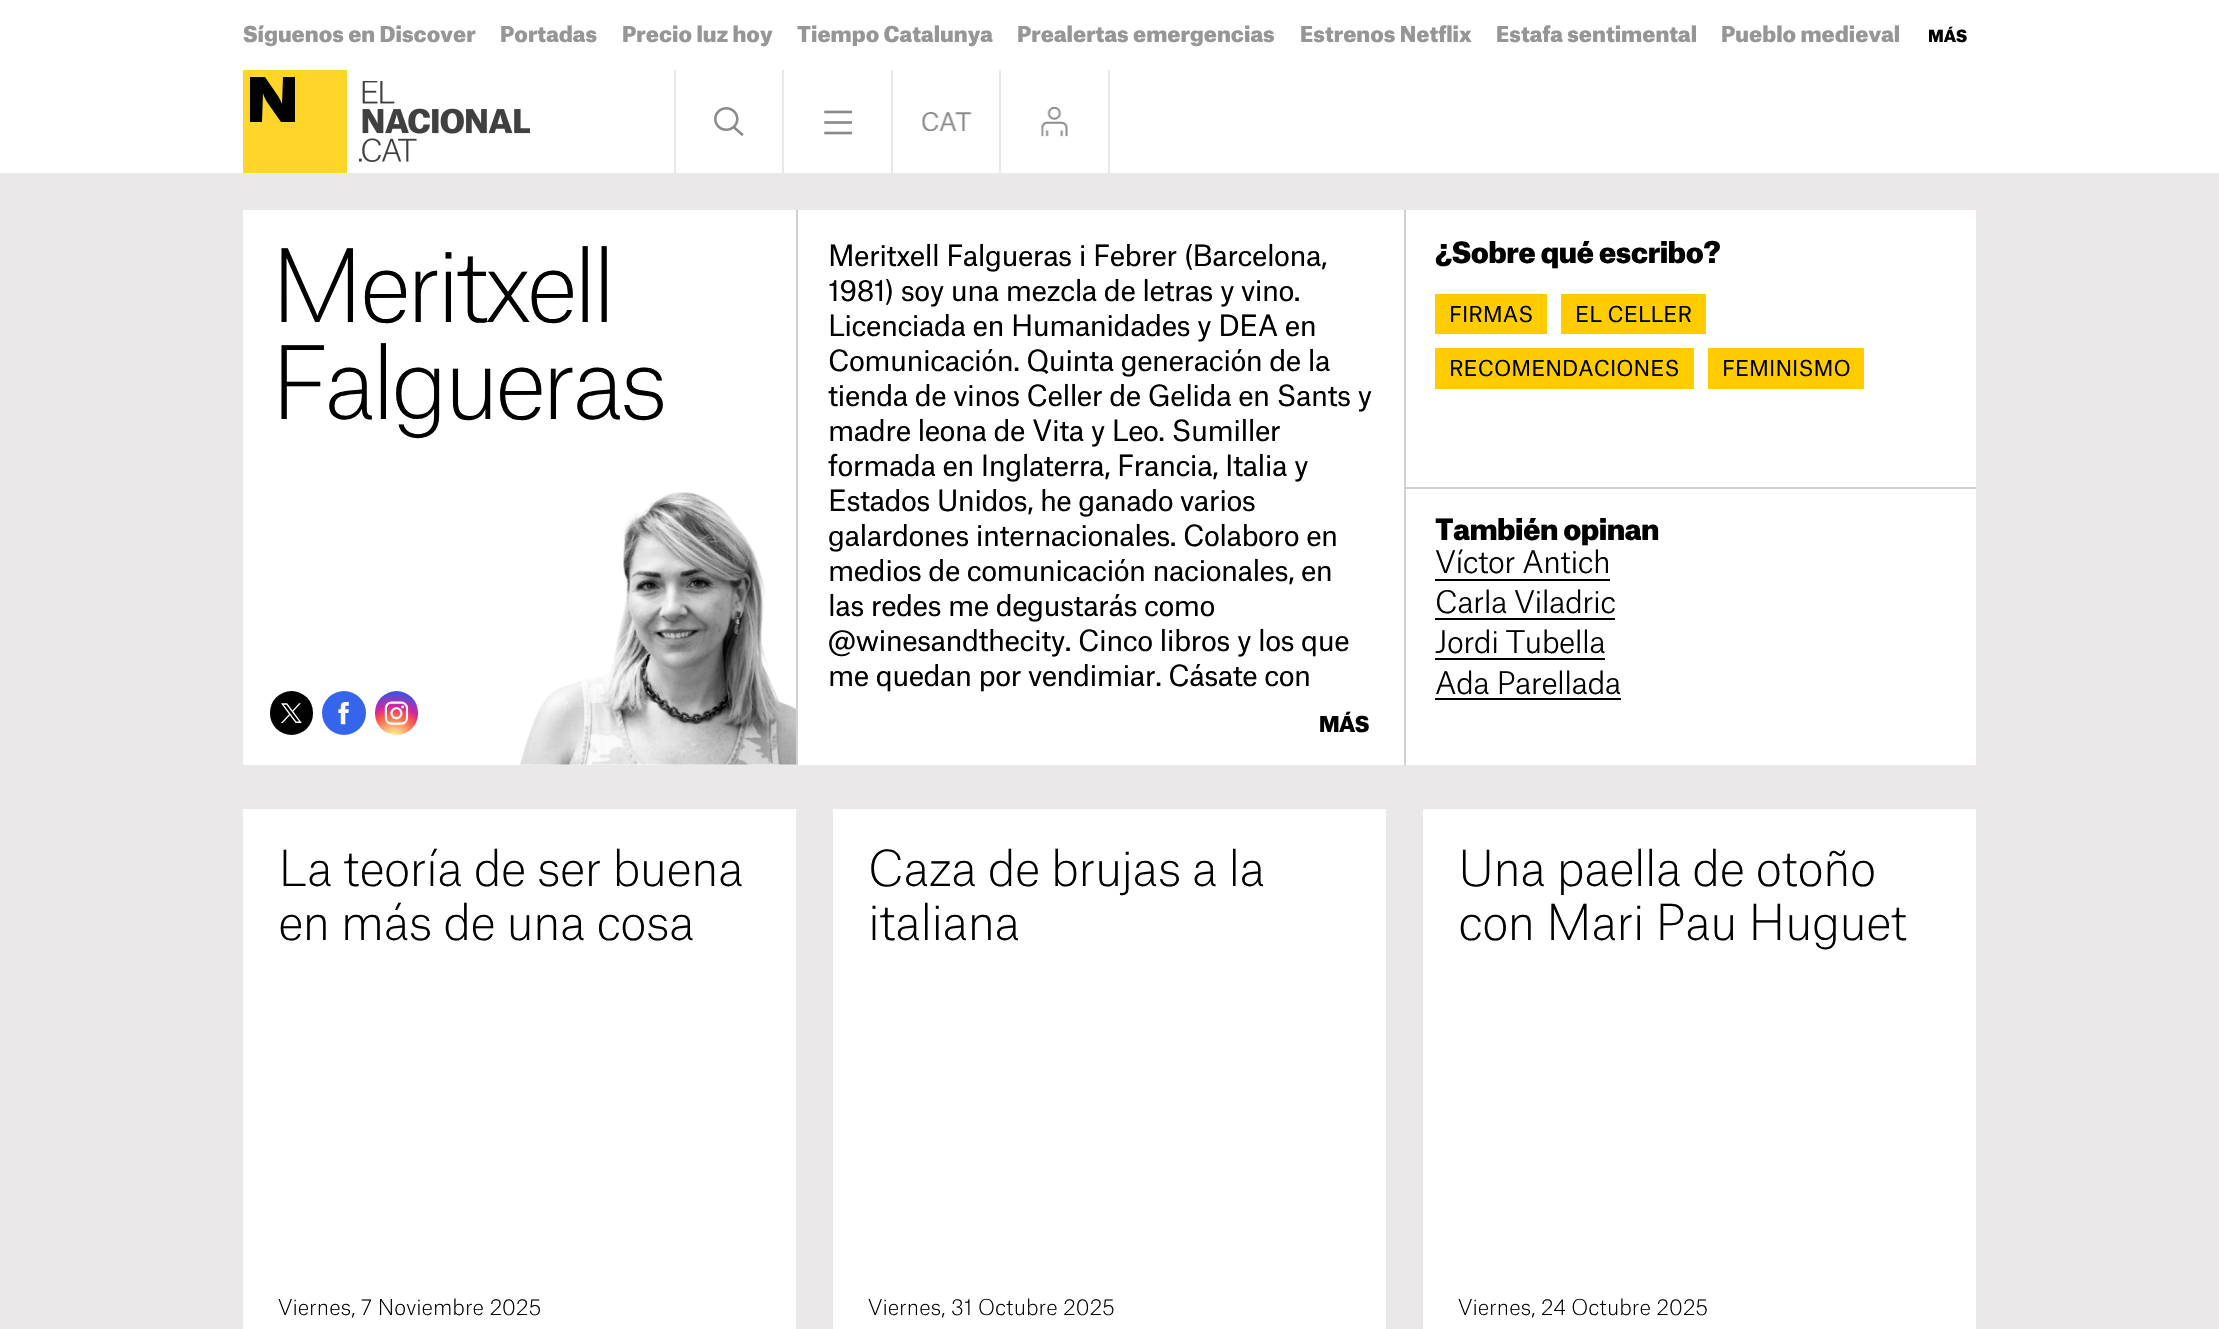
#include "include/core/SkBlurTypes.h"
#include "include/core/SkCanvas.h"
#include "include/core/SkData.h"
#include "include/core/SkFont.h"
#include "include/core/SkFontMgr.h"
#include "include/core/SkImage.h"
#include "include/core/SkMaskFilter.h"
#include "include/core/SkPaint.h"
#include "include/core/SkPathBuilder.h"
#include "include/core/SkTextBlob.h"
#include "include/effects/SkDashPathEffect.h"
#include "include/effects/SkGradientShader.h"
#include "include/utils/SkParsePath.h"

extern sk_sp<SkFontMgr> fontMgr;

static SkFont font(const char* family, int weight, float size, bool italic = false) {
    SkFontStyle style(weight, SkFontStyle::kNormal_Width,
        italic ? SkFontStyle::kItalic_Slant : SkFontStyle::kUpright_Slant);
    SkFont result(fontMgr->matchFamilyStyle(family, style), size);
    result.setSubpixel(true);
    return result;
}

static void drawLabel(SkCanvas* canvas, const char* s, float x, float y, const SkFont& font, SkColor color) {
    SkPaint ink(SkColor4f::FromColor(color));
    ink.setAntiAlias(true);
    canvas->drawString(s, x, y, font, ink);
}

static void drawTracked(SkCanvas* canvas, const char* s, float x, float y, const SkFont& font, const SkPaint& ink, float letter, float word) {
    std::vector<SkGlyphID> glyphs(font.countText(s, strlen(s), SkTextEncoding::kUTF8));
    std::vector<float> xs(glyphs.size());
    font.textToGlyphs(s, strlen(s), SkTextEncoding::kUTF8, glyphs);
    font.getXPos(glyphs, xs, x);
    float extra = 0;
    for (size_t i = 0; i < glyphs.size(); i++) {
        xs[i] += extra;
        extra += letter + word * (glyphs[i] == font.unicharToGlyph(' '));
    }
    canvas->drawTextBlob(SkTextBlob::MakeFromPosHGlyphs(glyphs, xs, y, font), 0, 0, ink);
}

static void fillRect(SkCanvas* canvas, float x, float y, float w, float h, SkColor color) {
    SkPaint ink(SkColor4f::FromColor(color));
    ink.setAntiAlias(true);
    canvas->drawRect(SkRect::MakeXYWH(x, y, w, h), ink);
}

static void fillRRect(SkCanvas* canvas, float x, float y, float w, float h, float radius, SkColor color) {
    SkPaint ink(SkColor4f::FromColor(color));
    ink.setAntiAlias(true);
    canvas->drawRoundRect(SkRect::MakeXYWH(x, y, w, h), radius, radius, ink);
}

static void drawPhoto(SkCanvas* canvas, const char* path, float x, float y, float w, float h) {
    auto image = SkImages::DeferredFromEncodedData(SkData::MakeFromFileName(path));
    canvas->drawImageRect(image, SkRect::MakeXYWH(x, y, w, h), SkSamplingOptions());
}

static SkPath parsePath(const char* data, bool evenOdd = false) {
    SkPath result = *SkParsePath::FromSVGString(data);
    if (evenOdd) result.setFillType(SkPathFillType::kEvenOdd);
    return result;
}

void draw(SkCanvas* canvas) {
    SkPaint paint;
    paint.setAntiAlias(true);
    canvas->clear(0xFFEAE8E8);
    fillRect(canvas, 0, 0, 2219, 173, 0xFFFFFFFF);
    SkFont font1 = font("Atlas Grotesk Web", 900, 21);
    drawLabel(canvas, "Síguenos en Discover", 243, 42, font1, 0xFF969696);
    drawLabel(canvas, "Portadas", 500, 42, font1, 0xFF969696);
    drawLabel(canvas, "Precio luz hoy", 622, 42, font1, 0xFF969696);
    drawLabel(canvas, "Tiempo Catalunya", 797, 42, font1, 0xFF969696);
    drawLabel(canvas, "Prealertas emergencias", 1017, 42, font1, 0xFF969696);
    drawLabel(canvas, "Estrenos Netflix", 1300, 42, font1, 0xFF969696);
    drawLabel(canvas, "Estafa sentimental", 1496, 42, font1, 0xFF969696);
    drawLabel(canvas, "Pueblo medieval", 1721, 42, font1, 0xFF969696);
    SkFont font2 = font("Atlas Grotesk Web", 900, 16);
    drawLabel(canvas, "MÁS", 1928, 42, font2, 0xFF000000);
    fillRect(canvas, 243, 70, 104, 103, 0xFFFFD529);
    paint.setColor(0xFF000000);
    canvas->drawPath(parsePath("M250 122H262L263 93C263 93 264 97 267 102L281 122H295V77H283L282 104C282 104 281 101 278 96L265 77H250Z"), paint);
    drawPhoto(canvas, "assets/img1.png", 359, 81, 171, 81);
    fillRect(canvas, 674, 70, 2, 103, 0xFFE9E8E7);
    drawPhoto(canvas, "assets/img2.png", 714, 107, 30, 29);
    fillRect(canvas, 782, 70, 2, 103, 0xFFE9E8E7);
    drawPhoto(canvas, "assets/img3.png", 824, 110, 28, 25);
    fillRect(canvas, 891, 70, 2, 103, 0xFFE9E8E7);
    drawPhoto(canvas, "assets/img4.png", 922, 112, 50, 19);
    fillRect(canvas, 1108, 70, 2, 103, 0xFFE9E8E7);
    fillRect(canvas, 999, 70, 2, 103, 0xFFE9E8E7);
    drawPhoto(canvas, "assets/img5.png", 1041, 107, 27, 30);
    fillRect(canvas, 243, 210, 1733, 555, 0xFFFFFFFF);
    SkFont font3 = font("Atlas Grotesk Web", 100, 96.25f);
    drawTracked(canvas, "Meritxell", 270, 322, font3, paint, -5.25f, 0);
    drawTracked(canvas, "Falgueras", 270, 419, font3, paint, -5.25f, 0);
    fillRRect(canvas, 270, 691, 43, 44, 21.5f, 0xFF000000);
    drawPhoto(canvas, "assets/img6.png", 281, 703, 21, 20);
    paint.setColor(0xFF3465EA);
    canvas->drawCircle(344, 713, 22, paint);
    drawPhoto(canvas, "assets/img7.png", 338, 702, 11, 23);
    {
        const SkColor colors[] = {0xFFFDF497, 0xFFFDF497, 0xFFFD5949, 0xFFD6249F, 0xFF285AEB};
        const float stops[] = {0, 0.05f, 0.45f, 0.6f, 0.9f};
        paint.setShader(SkGradientShader::MakeRadial({394, 738}, 53, colors, stops, 5, SkTileMode::kClamp));
        paint.setAlpha(255);
    }
    canvas->drawRoundRect(SkRect::MakeXYWH(375, 691, 43, 44), 21.5f, 21.5f, paint);
    drawPhoto(canvas, "assets/img8.png", 384, 701, 25, 24);
    drawPhoto(canvas, "assets/img9.png", 520, 492, 276, 273);
    fillRect(canvas, 1405, 487, 571, 2, 0xFFD3D0D0);
    fillRect(canvas, 1404, 210, 2, 555, 0xFFD3D0D0);
    fillRect(canvas, 796, 210, 2, 555, 0xFFD3D0D0);
    SkFont font4 = font("Atlas Grotesk Web", 400, 28);
    paint.setShader(nullptr);
    paint.setColor(0xFF000000);
    drawTracked(canvas, "Meritxell Falgueras i Febrer (Barcelona,", 828, 266, font4, paint, -0.55f, 0);
    drawTracked(canvas, "1981) soy una mezcla de letras y vino.", 828, 301, font4, paint, -0.55f, 0);
    drawTracked(canvas, "Licenciada en Humanidades y DEA en", 828, 336, font4, paint, -0.55f, 0);
    drawTracked(canvas, "Comunicación. Quinta generación de la", 828, 371, font4, paint, -0.55f, 0);
    drawTracked(canvas, "tienda de vinos Celler de Gelida en Sants y", 828, 406, font4, paint, -0.55f, 0);
    drawTracked(canvas, "madre leona de Vita y Leo. Sumiller", 828, 441, font4, paint, -0.55f, 0);
    drawTracked(canvas, "formada en Inglaterra, Francia, Italia y", 828, 476, font4, paint, -0.55f, 0);
    drawTracked(canvas, "Estados Unidos, he ganado varios", 828, 511, font4, paint, -0.55f, 0);
    drawTracked(canvas, "galardones internacionales. Colaboro en", 828, 546, font4, paint, -0.55f, 0);
    drawTracked(canvas, "medios de comunicación nacionales, en", 828, 581, font4, paint, -0.55f, 0);
    drawTracked(canvas, "las redes me degustarás como", 828, 616, font4, paint, -0.55f, 0);
    drawTracked(canvas, "@winesandthecity. Cinco libros y los que", 828, 651, font4, paint, -0.55f, 0);
    drawTracked(canvas, "me quedan por vendimiar. Cásate con", 828, 686, font4, paint, -0.55f, 0);
    drawTracked(canvas, "MÁS", 1319, 732, font1, paint, -0.55f, 0);
    SkFont font5 = font("Atlas Grotesk Web", 900, 28);
    drawTracked(canvas, "¿Sobre qué escribo?", 1435, 263, font5, paint, -0.55f, 0);
    fillRect(canvas, 1435, 294, 112, 40, 0xFFFFCC00);
    SkFont font6 = font("Atlas Grotesk Web", 400, 21);
    drawLabel(canvas, "FIRMAS", 1449, 322, font6, 0xFF000000);
    fillRect(canvas, 1561, 294, 145, 40, 0xFFFFCC00);
    drawLabel(canvas, "EL CELLER", 1575, 322, font6, 0xFF000000);
    fillRect(canvas, 1435, 348, 259, 41, 0xFFFFCC00);
    drawLabel(canvas, "RECOMENDACIONES", 1449, 376, font6, 0xFF000000);
    fillRect(canvas, 1708, 348, 156, 41, 0xFFFFCC00);
    drawLabel(canvas, "FEMINISMO", 1722, 376, font6, 0xFF000000);
    drawTracked(canvas, "También opinan", 1435, 540, font5, paint, -0.55f, 0);
    SkFont font7 = font("Atlas Grotesk Web", 300, 29.75f);
    drawTracked(canvas, "Víctor Antich", 1435, 573, font7, paint, -0.6f, 0);
    fillRect(canvas, 1435, 579, 175, 2, 0xFF000000);
    drawTracked(canvas, "Carla Viladric", 1435, 613, font7, paint, -0.6f, 0);
    fillRect(canvas, 1435, 618, 180, 2, 0xFF000000);
    drawTracked(canvas, "Jordi Tubella", 1435, 653, font7, paint, -0.6f, 0);
    fillRect(canvas, 1435, 658, 170, 2, 0xFF000000);
    drawTracked(canvas, "Ada Parellada", 1435, 694, font7, paint, -0.6f, 0);
    fillRect(canvas, 1435, 698, 186, 2, 0xFF000000);
    fillRect(canvas, 243, 809, 553, 520, 0xFFFFFFFF);
    SkFont font8 = font("Atlas Grotesk Web", 100, 47.25f);
    drawTracked(canvas, "La teoría de ser buena", 278, 886, font8, paint, -0.95f, 0);
    drawTracked(canvas, "en más de una cosa", 278, 940, font8, paint, -0.95f, 0);
    SkFont font9 = font("Atlas Grotesk Web", 100, 21);
    drawLabel(canvas, "Viernes, 7 Noviembre 2025", 278, 1315, font9, 0xFF000000);
    fillRect(canvas, 833, 809, 553, 520, 0xFFFFFFFF);
    drawTracked(canvas, "Caza de brujas a la", 868, 886, font8, paint, -0.95f, 0);
    drawTracked(canvas, "italiana", 868, 940, font8, paint, -0.95f, 0);
    drawLabel(canvas, "Viernes, 31 Octubre 2025", 868, 1315, font9, 0xFF000000);
    fillRect(canvas, 1423, 809, 553, 520, 0xFFFFFFFF);
    drawTracked(canvas, "Una paella de otoño", 1458, 886, font8, paint, -0.95f, 0);
    drawTracked(canvas, "con Mari Pau Huguet", 1458, 940, font8, paint, -0.95f, 0);
    drawLabel(canvas, "Viernes, 24 Octubre 2025", 1458, 1315, font9, 0xFF000000);
}
